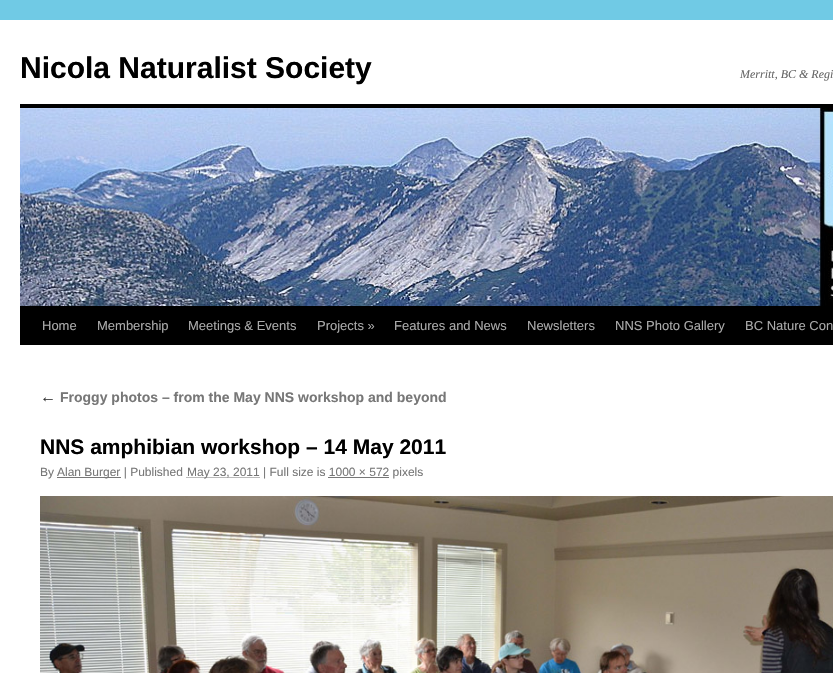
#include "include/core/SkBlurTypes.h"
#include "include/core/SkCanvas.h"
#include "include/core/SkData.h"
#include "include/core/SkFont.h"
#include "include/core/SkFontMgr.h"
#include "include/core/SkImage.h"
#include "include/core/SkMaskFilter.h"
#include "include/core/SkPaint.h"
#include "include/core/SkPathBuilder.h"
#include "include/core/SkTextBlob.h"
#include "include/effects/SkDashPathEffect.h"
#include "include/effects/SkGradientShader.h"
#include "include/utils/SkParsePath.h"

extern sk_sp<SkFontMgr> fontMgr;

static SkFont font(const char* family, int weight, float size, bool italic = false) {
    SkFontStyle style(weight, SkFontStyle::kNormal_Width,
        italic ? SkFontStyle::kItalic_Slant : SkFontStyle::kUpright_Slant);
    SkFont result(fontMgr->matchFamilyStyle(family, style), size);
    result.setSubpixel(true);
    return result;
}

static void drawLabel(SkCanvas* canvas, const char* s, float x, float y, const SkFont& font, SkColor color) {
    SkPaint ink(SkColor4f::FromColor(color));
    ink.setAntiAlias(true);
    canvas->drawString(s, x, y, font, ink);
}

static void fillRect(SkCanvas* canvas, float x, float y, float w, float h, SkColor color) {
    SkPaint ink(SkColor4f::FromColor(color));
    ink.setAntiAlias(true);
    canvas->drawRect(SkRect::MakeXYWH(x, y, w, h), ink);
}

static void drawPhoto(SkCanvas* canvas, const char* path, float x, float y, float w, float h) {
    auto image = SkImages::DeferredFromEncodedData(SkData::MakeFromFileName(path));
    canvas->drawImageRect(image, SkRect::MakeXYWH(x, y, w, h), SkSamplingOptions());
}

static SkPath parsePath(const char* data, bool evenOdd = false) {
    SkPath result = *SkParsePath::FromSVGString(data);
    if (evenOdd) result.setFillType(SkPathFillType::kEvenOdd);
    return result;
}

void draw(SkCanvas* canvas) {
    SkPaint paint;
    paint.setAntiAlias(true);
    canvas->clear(0xFF70CAE5);
    fillRect(canvas, 0, 20, 833, 653, 0xFFFFFFFF);
    SkFont font1 = font("Liberation Sans", 700, 30);
    drawLabel(canvas, "Nicola Naturalist Society", 20, 78, font1, 0xFF000000);
    SkFont font2 = font("Liberation Serif", 400, 12, true);
    drawLabel(canvas, "Merritt, BC & Regi", 740, 78, font2, 0xFF666666);
    fillRect(canvas, 20, 104, 813, 4, 0xFF000000);
    fillRect(canvas, 20, 306, 813, 39, 0xFF000000);
    drawPhoto(canvas, "assets/img1.png", 20, 108, 813, 198);
    SkFont font3 = font("Liberation Sans", 400, 13);
    drawLabel(canvas, "Home", 42, 330, font3, 0xFFAAAAAA);
    drawLabel(canvas, "Membership", 97, 330, font3, 0xFFAAAAAA);
    drawLabel(canvas, "Meetings & Events", 188, 330, font3, 0xFFAAAAAA);
    drawLabel(canvas, "Projects »", 317, 330, font3, 0xFFAAAAAA);
    drawLabel(canvas, "Features and News", 394, 330, font3, 0xFFAAAAAA);
    drawLabel(canvas, "Newsletters", 527, 330, font3, 0xFFAAAAAA);
    drawLabel(canvas, "NNS Photo Gallery", 615, 330, font3, 0xFFAAAAAA);
    drawLabel(canvas, "BC Nature Con", 745, 330, font3, 0xFFAAAAAA);
    SkFont font4 = font("Liberation Serif", 400, 16, true);
    drawLabel(canvas, "←", 40, 402, font4, 0xFF333333);
    SkFont font5 = font("Liberation Sans", 700, 14);
    drawLabel(canvas, "Froggy photos – from the May NNS workshop and beyond", 60, 402, font5, 0xFF777777);
    SkFont font6 = font("Liberation Sans", 700, 21);
    drawLabel(canvas, "NNS amphibian workshop – 14 May 2011", 40, 454, font6, 0xFF000000);
    SkFont font7 = font("Liberation Sans", 400, 12);
    drawLabel(canvas, "By", 40, 476, font7, 0xFF777777);
    fillRect(canvas, 57, 477, 64, 1, 0xFF777777);
    drawLabel(canvas, "Alan Burger | Published", 57, 476, font7, 0xFF777777);
    paint.setStroke(true);
    paint.setStrokeWidth(1);
    paint.setColor(0xFF777777);
    paint.setPathEffect(SkDashPathEffect::Make({{1, 1}}, 0));
    canvas->drawPath(parsePath("M186.5 477.5H259.5"), paint);
    paint.setPathEffect(nullptr);
    drawLabel(canvas, "May 23, 2011 | Full size is 1000 × 572 pixels", 187, 476, font7, 0xFF777777);
    fillRect(canvas, 328, 477, 61, 1, 0xFF777777);
    drawPhoto(canvas, "assets/img2.png", 40, 496, 793, 177);
}
